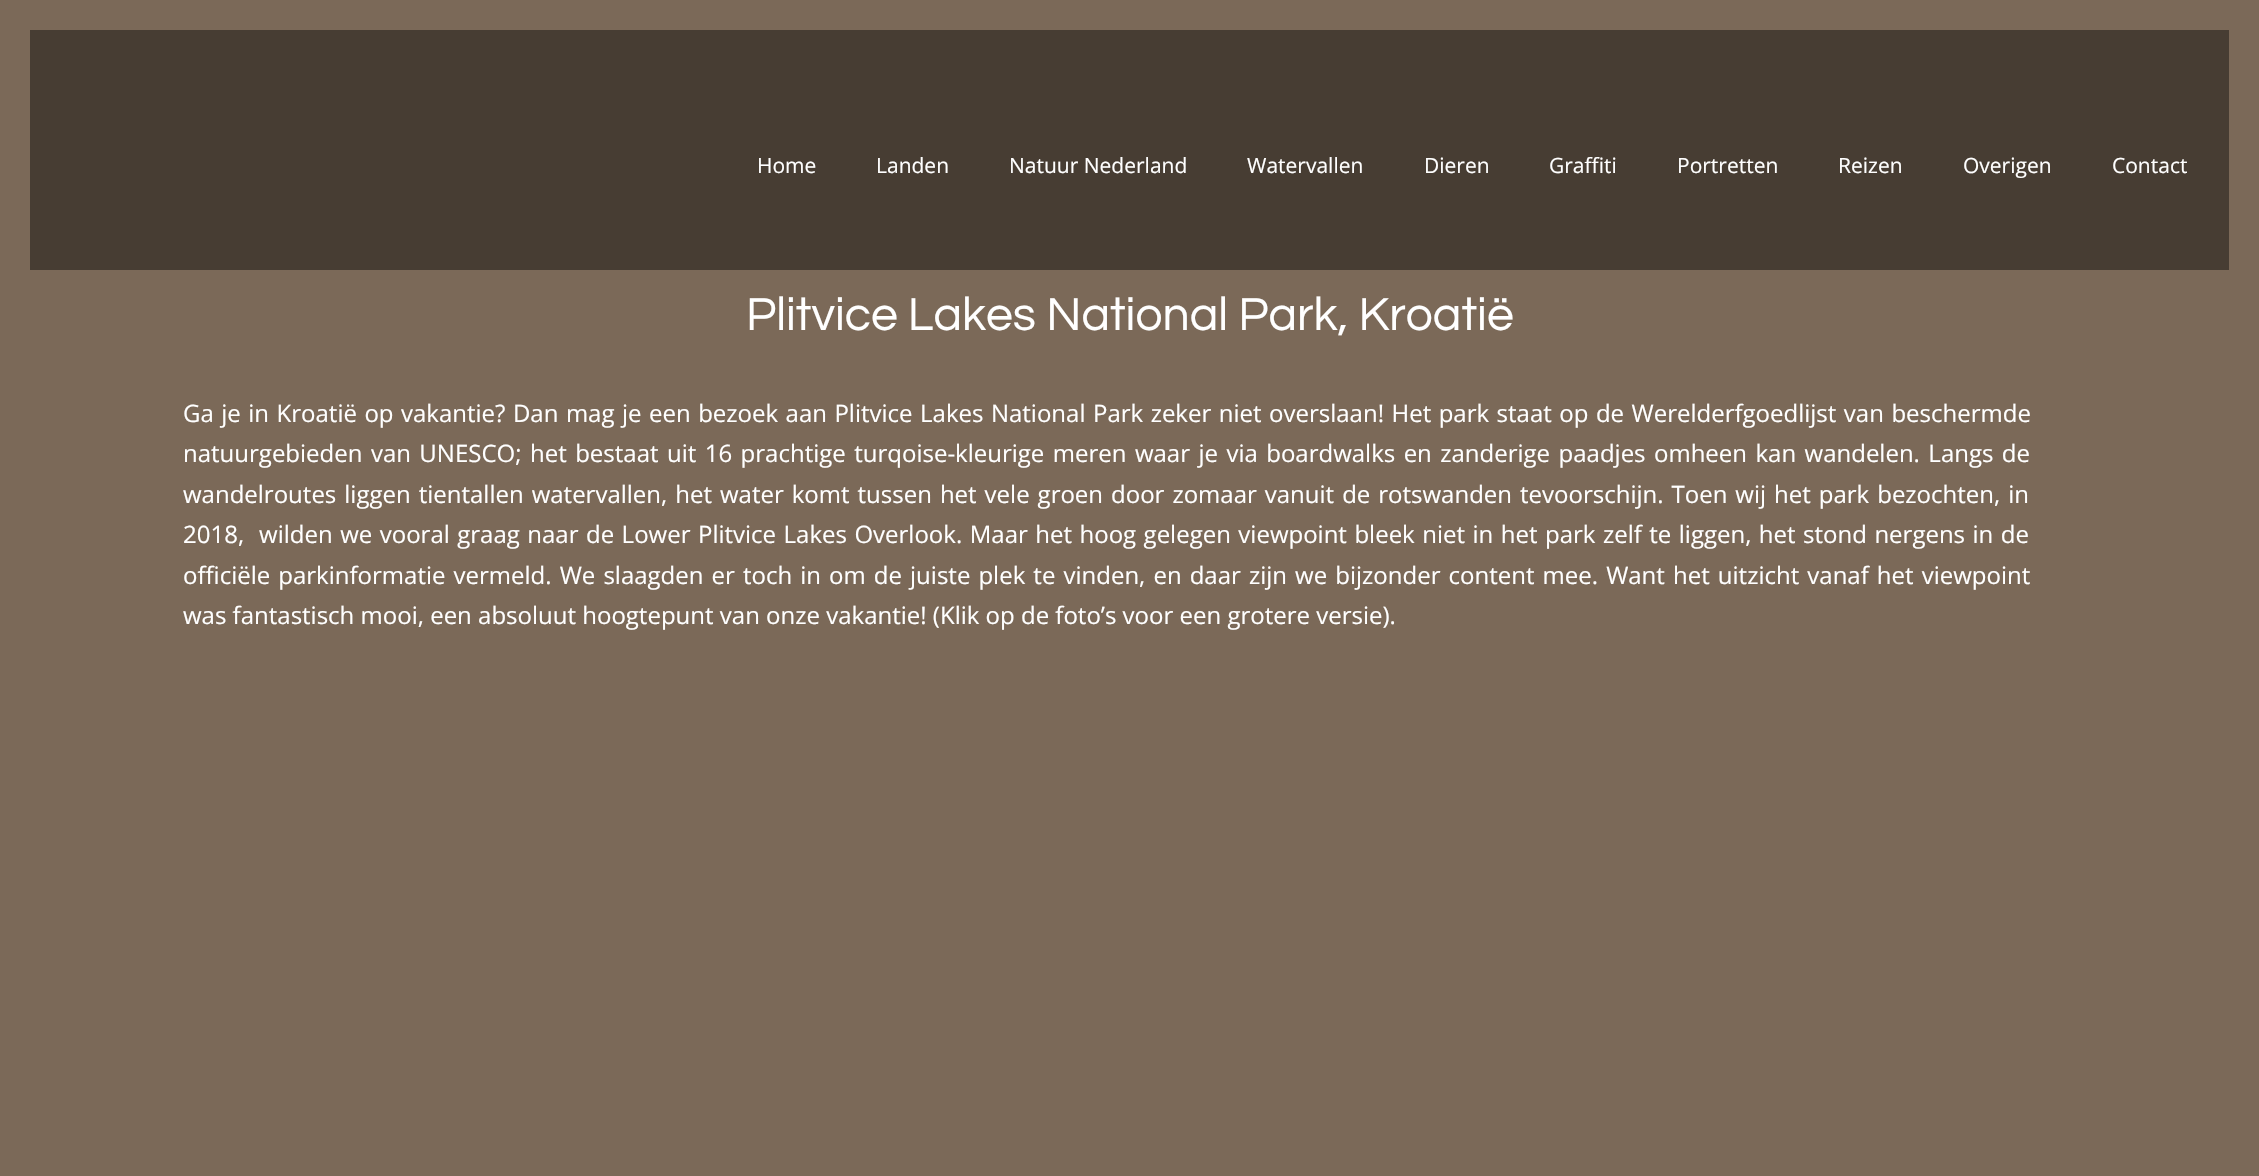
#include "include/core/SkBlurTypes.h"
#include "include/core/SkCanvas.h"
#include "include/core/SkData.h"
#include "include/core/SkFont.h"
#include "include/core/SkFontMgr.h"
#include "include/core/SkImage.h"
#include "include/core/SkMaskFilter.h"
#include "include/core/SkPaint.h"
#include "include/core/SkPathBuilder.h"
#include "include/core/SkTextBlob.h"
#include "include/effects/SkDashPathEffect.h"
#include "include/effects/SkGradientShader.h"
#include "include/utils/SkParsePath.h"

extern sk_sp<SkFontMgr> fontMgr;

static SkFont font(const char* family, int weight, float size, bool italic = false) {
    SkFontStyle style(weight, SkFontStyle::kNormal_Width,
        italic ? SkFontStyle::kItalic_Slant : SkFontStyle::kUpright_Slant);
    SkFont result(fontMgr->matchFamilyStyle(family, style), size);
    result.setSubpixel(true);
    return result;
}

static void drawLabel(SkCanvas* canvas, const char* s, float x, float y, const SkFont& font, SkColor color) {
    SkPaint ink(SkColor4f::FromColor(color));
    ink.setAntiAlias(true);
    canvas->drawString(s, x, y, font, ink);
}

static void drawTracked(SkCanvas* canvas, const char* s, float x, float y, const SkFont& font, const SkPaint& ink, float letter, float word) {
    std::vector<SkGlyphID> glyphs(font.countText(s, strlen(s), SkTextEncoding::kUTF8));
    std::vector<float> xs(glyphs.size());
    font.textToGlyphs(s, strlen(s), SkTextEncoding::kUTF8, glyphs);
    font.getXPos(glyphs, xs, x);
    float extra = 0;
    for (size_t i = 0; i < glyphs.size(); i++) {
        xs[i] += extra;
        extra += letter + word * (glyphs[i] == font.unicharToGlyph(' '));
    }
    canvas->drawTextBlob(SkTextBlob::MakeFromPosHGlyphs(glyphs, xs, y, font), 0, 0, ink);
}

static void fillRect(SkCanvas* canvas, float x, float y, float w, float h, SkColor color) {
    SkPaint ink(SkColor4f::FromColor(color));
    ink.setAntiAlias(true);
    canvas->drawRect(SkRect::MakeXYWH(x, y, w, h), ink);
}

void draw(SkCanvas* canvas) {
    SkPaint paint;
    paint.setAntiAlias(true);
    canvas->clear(0xFF473D33);
    fillRect(canvas, 0, 0, 30, 1176, 0xFF7B6958);
    fillRect(canvas, 30, 0, 2199, 30, 0xFF7B6958);
    fillRect(canvas, 2229, 0, 30, 1146, 0xFF7B6958);
    SkFont font1 = font("Open Sans", 400, 21);
    drawLabel(canvas, "Home", 757, 173, font1, 0xFFFFFFFF);
    drawLabel(canvas, "Landen", 876, 173, font1, 0xFFFFFFFF);
    drawLabel(canvas, "Natuur Nederland", 1009, 173, font1, 0xFFFFFFFF);
    drawLabel(canvas, "Watervallen", 1247, 173, font1, 0xFFFFFFFF);
    drawLabel(canvas, "Dieren", 1424, 173, font1, 0xFFFFFFFF);
    drawLabel(canvas, "Graffiti", 1549, 173, font1, 0xFFFFFFFF);
    drawLabel(canvas, "Portretten", 1677, 173, font1, 0xFFFFFFFF);
    drawLabel(canvas, "Reizen", 1838, 173, font1, 0xFFFFFFFF);
    drawLabel(canvas, "Overigen", 1963, 173, font1, 0xFFFFFFFF);
    drawLabel(canvas, "Contact", 2112, 173, font1, 0xFFFFFFFF);
    fillRect(canvas, 30, 270, 2199, 876, 0xFF7B6958);
    SkFont font2 = font("Questrial", 400, 48);
    drawLabel(canvas, "Plitvice Lakes National Park, Kroatië", 746, 330, font2, 0xFFFFFFFF);
    SkFont font3 = font("Open Sans", 400, 24);
    paint.setColor(0xFFFFFFFF);
    drawTracked(canvas, "Ga je in Kroatië op vakantie? Dan mag je een bezoek aan Plitvice Lakes National Park zeker niet overslaan! Het park staat op de Werelderfgoedlijst van beschermde", 183, 422, font3, paint, 0, 1.25f);
    drawTracked(canvas, "natuurgebieden van UNESCO; het bestaat uit 16 prachtige turqoise-kleurige meren waar je via boardwalks en zanderige paadjes omheen kan wandelen. Langs de", 183, 462, font3, paint, 0, 2.2f);
    drawTracked(canvas, "wandelroutes liggen tientallen watervallen, het water komt tussen het vele groen door zomaar vanuit de rotswanden tevoorschijn. Toen wij het park bezochten, in", 183, 503, font3, paint, 0, 1.75f);
    drawTracked(canvas, "2018,  wilden we vooral graag naar de Lower Plitvice Lakes Overlook. Maar het hoog gelegen viewpoint bleek niet in het park zelf te liggen, het stond nergens in de", 183, 543, font3, paint, 0, 1.25f);
    drawTracked(canvas, "officiële parkinformatie vermeld. We slaagden er toch in om de juiste plek te vinden, en daar zijn we bijzonder content mee. Want het uitzicht vanaf het viewpoint", 183, 584, font3, paint, 0, 1.85f);
    drawLabel(canvas, "was fantastisch mooi, een absoluut hoogtepunt van onze vakantie! (Klik op de foto’s voor een grotere versie).", 183, 624, font3, 0xFFFFFFFF);
    fillRect(canvas, 30, 1146, 2229, 30, 0xFF7B6958);
}
